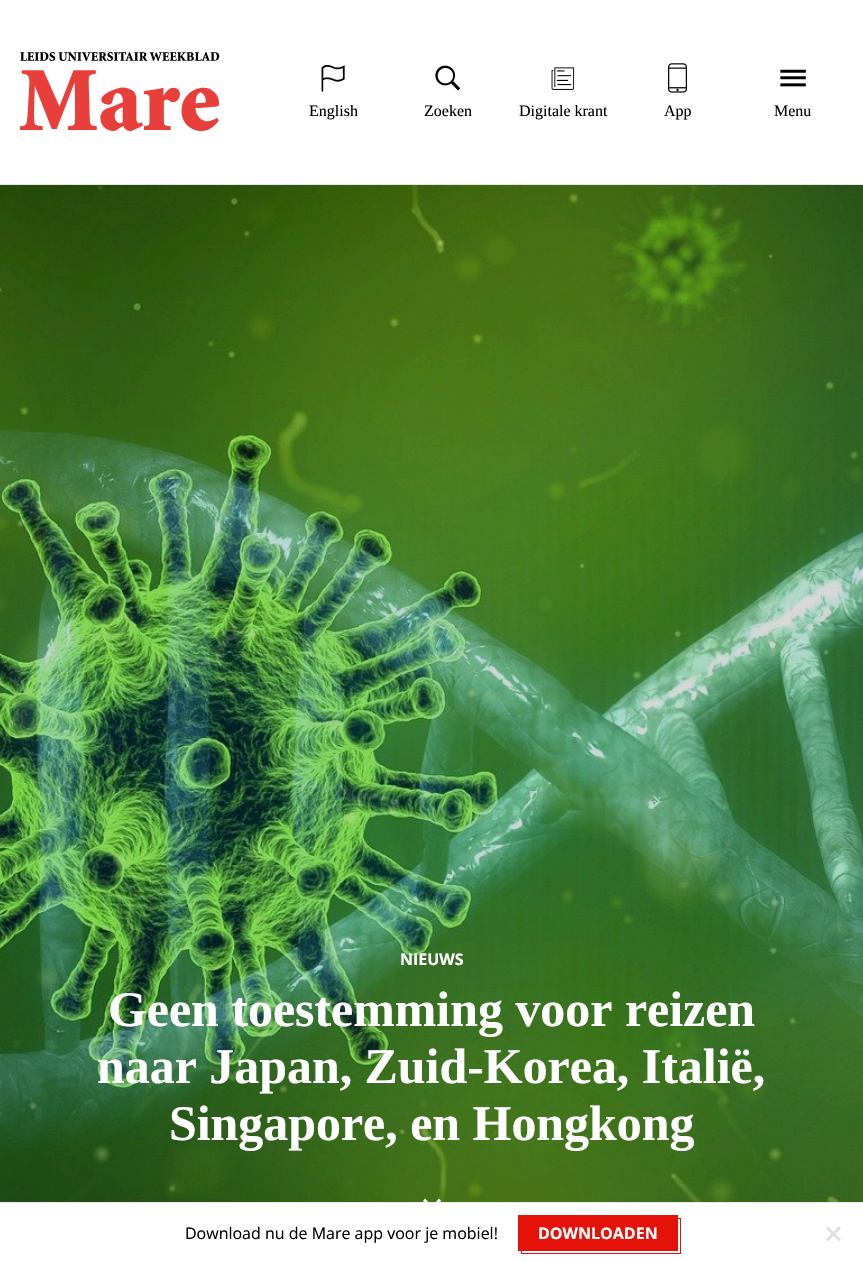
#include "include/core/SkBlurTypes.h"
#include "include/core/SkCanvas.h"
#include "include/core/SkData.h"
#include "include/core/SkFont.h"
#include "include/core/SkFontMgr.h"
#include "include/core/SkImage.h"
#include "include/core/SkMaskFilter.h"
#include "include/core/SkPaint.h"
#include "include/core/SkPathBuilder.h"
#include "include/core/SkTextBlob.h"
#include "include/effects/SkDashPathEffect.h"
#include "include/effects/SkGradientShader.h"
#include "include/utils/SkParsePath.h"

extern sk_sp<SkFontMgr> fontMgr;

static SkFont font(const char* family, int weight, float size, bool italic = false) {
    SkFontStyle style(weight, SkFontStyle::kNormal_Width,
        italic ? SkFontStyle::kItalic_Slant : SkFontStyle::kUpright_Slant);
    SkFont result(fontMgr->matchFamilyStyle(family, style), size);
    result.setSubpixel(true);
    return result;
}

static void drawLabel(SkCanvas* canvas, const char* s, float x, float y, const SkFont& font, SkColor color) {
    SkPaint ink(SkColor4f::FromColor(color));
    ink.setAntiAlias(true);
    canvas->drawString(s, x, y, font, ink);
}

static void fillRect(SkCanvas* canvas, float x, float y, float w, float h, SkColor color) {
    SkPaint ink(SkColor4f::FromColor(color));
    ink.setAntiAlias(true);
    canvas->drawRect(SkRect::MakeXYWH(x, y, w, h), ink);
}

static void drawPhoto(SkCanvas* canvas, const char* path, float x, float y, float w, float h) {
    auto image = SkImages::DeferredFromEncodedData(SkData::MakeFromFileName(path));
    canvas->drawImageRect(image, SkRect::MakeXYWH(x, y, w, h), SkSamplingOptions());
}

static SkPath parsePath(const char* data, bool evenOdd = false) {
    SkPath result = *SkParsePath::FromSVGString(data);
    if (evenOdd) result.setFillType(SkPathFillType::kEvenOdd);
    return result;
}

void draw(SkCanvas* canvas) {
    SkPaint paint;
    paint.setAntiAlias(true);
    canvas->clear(0xFFFFFFFF);
    fillRect(canvas, 0, 184, 863, 1, 0xFFE5E5E5);
    drawPhoto(canvas, "assets/img1.png", 20, 52, 200, 79);
    drawPhoto(canvas, "assets/img2.png", 321, 65, 24, 27);
    SkFont font1 = font("Liberation Serif", 400, 16);
    drawLabel(canvas, "English", 309, 116, font1, 0xFF000000);
    drawPhoto(canvas, "assets/img3.png", 435, 65, 26, 26);
    drawLabel(canvas, "Zoeken", 424, 116, font1, 0xFF000000);
    drawPhoto(canvas, "assets/img4.png", 551, 67, 24, 23);
    drawLabel(canvas, "Digitale krant", 519, 116, font1, 0xFF000000);
    drawPhoto(canvas, "assets/img5.png", 668, 63, 19, 30);
    drawLabel(canvas, "App", 664, 116, font1, 0xFF000000);
    drawPhoto(canvas, "assets/img6.png", 780, 69, 26, 18);
    drawLabel(canvas, "Menu", 774, 116, font1, 0xFF000000);
    drawPhoto(canvas, "assets/img7.png", 0, 185, 863, 1017);
    SkFont font2 = font("Open Sans", 700, 16);
    drawLabel(canvas, "NIEUWS", 400, 965, font2, 0xFFFFFFFF);
    SkFont font3 = font("Liberation Serif", 700, 49.9f);
    drawLabel(canvas, "Geen toestemming voor reizen", 108, 1026, font3, 0xFFFFFFFF);
    drawLabel(canvas, "naar Japan, Zuid-Korea, Italië,", 97, 1083, font3, 0xFFFFFFFF);
    drawLabel(canvas, "Singapore, en Hongkong", 169, 1140, font3, 0xFFFFFFFF);
    paint.setColor(0xFFFFFFFF);
    canvas->drawPath(parsePath("M425 1198.5L423 1201L432 1210L441 1201L439 1198.5L432 1206Z"), paint);
    fillRect(canvas, 0, 1202, 863, 1, 0xFFE9E9E9);
    SkFont font4 = font("Open Sans", 400, 16);
    drawLabel(canvas, "Download nu de Mare app voor je mobiel!", 185, 1239, font4, 0xFF000000);
    paint.setStroke(true);
    paint.setStrokeWidth(1);
    paint.setColor(0xFFE41209);
    canvas->drawRect(SkRect::MakeXYWH(521.5f, 1218.5f, 159, 35), paint);
    fillRect(canvas, 518, 1215, 160, 36, 0xFFE41209);
    drawLabel(canvas, "DOWNLOADEN", 538, 1239, font2, 0xFFFFFFFF);
    SkFont font5 = font("DejaVu Sans", 400, 25);
    drawLabel(canvas, "✕", 823, 1243, font5, 0xFFDDDDDD);
}
